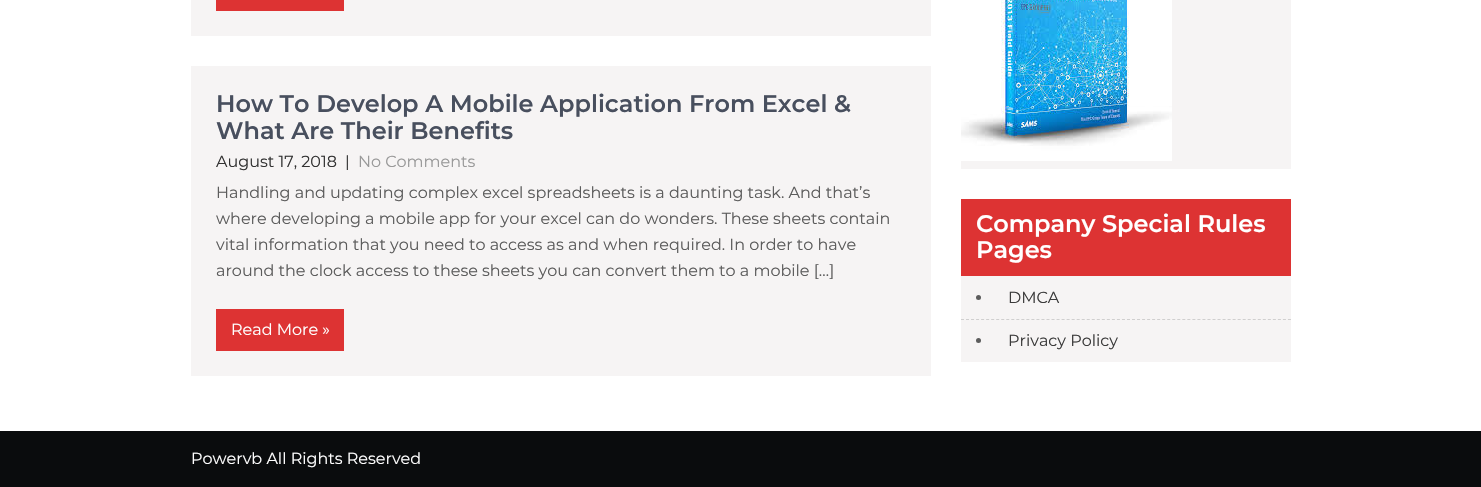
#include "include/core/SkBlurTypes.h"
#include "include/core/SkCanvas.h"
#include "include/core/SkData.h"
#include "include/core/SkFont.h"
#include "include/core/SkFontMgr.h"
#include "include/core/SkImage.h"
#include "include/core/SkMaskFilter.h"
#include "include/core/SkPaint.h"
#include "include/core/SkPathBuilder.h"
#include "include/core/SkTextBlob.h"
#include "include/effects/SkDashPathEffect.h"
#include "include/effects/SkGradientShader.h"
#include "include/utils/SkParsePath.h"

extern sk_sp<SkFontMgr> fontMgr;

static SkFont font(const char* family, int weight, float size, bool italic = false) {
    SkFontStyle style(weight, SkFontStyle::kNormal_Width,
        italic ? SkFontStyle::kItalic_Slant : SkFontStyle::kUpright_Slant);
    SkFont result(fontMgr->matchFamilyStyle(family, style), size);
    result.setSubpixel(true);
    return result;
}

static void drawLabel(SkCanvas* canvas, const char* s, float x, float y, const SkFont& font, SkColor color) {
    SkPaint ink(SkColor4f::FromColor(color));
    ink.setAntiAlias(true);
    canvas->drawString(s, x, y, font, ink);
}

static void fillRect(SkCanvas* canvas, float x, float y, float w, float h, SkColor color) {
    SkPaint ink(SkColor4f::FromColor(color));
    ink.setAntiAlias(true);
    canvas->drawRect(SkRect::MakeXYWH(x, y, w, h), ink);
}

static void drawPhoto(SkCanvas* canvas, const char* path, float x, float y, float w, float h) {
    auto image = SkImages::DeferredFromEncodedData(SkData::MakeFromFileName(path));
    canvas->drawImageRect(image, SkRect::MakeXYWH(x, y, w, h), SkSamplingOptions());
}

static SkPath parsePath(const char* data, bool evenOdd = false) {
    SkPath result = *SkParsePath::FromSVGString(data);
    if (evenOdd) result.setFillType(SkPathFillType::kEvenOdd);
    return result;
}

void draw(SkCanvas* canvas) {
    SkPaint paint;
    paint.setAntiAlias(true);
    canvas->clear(0xFFFFFFFF);
    fillRect(canvas, 191, 0, 740, 36, 0xFFF6F4F4);
    fillRect(canvas, 216, 0, 128, 11, 0xFFDD3333);
    fillRect(canvas, 191, 66, 740, 310, 0xFFF6F4F4);
    SkFont font1 = font("Montserrat", 600, 24);
    drawLabel(canvas, "How To Develop A Mobile Application From Excel &", 216, 112, font1, 0xFF484F5E);
    drawLabel(canvas, "What Are Their Benefits", 216, 139, font1, 0xFF484F5E);
    SkFont font2 = font("Montserrat", 400, 16);
    drawLabel(canvas, "August 17, 2018", 216, 167, font2, 0xFF333333);
    drawLabel(canvas, "|", 345, 167, font2, 0xFF333333);
    drawLabel(canvas, "No Comments", 358, 167, font2, 0xFF999999);
    drawLabel(canvas, "Handling and updating complex excel spreadsheets is a daunting task. And that’s", 216, 198, font2, 0xFF5C5C5C);
    drawLabel(canvas, "where developing a mobile app for your excel can do wonders. These sheets contain", 216, 224, font2, 0xFF5C5C5C);
    drawLabel(canvas, "vital information that you need to access as and when required. In order to have", 216, 250, font2, 0xFF5C5C5C);
    drawLabel(canvas, "around the clock access to these sheets you can convert them to a mobile […]", 216, 276, font2, 0xFF5C5C5C);
    fillRect(canvas, 216, 309, 128, 42, 0xFFDD3333);
    drawLabel(canvas, "Read More »", 231, 335, font2, 0xFFFFFFFF);
    fillRect(canvas, 961, 0, 330, 169, 0xFFF6F4F4);
    drawPhoto(canvas, "assets/img1.png", 961, 0, 211, 161);
    fillRect(canvas, 961, 276, 330, 86, 0xFFF6F4F4);
    fillRect(canvas, 961, 199, 330, 77, 0xFFDD3333);
    drawLabel(canvas, "Company Special Rules", 976, 232, font1, 0xFFFFFFFF);
    drawLabel(canvas, "Pages", 976, 258, font1, 0xFFFFFFFF);
    paint.setStroke(true);
    paint.setStrokeWidth(1);
    paint.setColor(0xFFD0CFCF);
    paint.setPathEffect(SkDashPathEffect::Make({{3, 2.03f}}, 0));
    canvas->drawPath(parsePath("M961 319.5H1291"), paint);
    paint.setPathEffect(nullptr);
    paint.setStroke(false);
    paint.setColor(0xFF5C5C5C);
    canvas->drawCircle(978.5f, 297.5f, 2.5f, paint);
    drawLabel(canvas, "DMCA", 1008, 303, font2, 0xFF3B3B3B);
    canvas->drawCircle(978.5f, 340.5f, 2.5f, paint);
    drawLabel(canvas, "Privacy Policy", 1008, 346, font2, 0xFF3B3B3B);
    fillRect(canvas, 0, 431, 1481, 56, 0xFF0A0C0D);
    drawLabel(canvas, "Powervb All Rights Reserved", 191, 464, font2, 0xFFFFFFFF);
}
